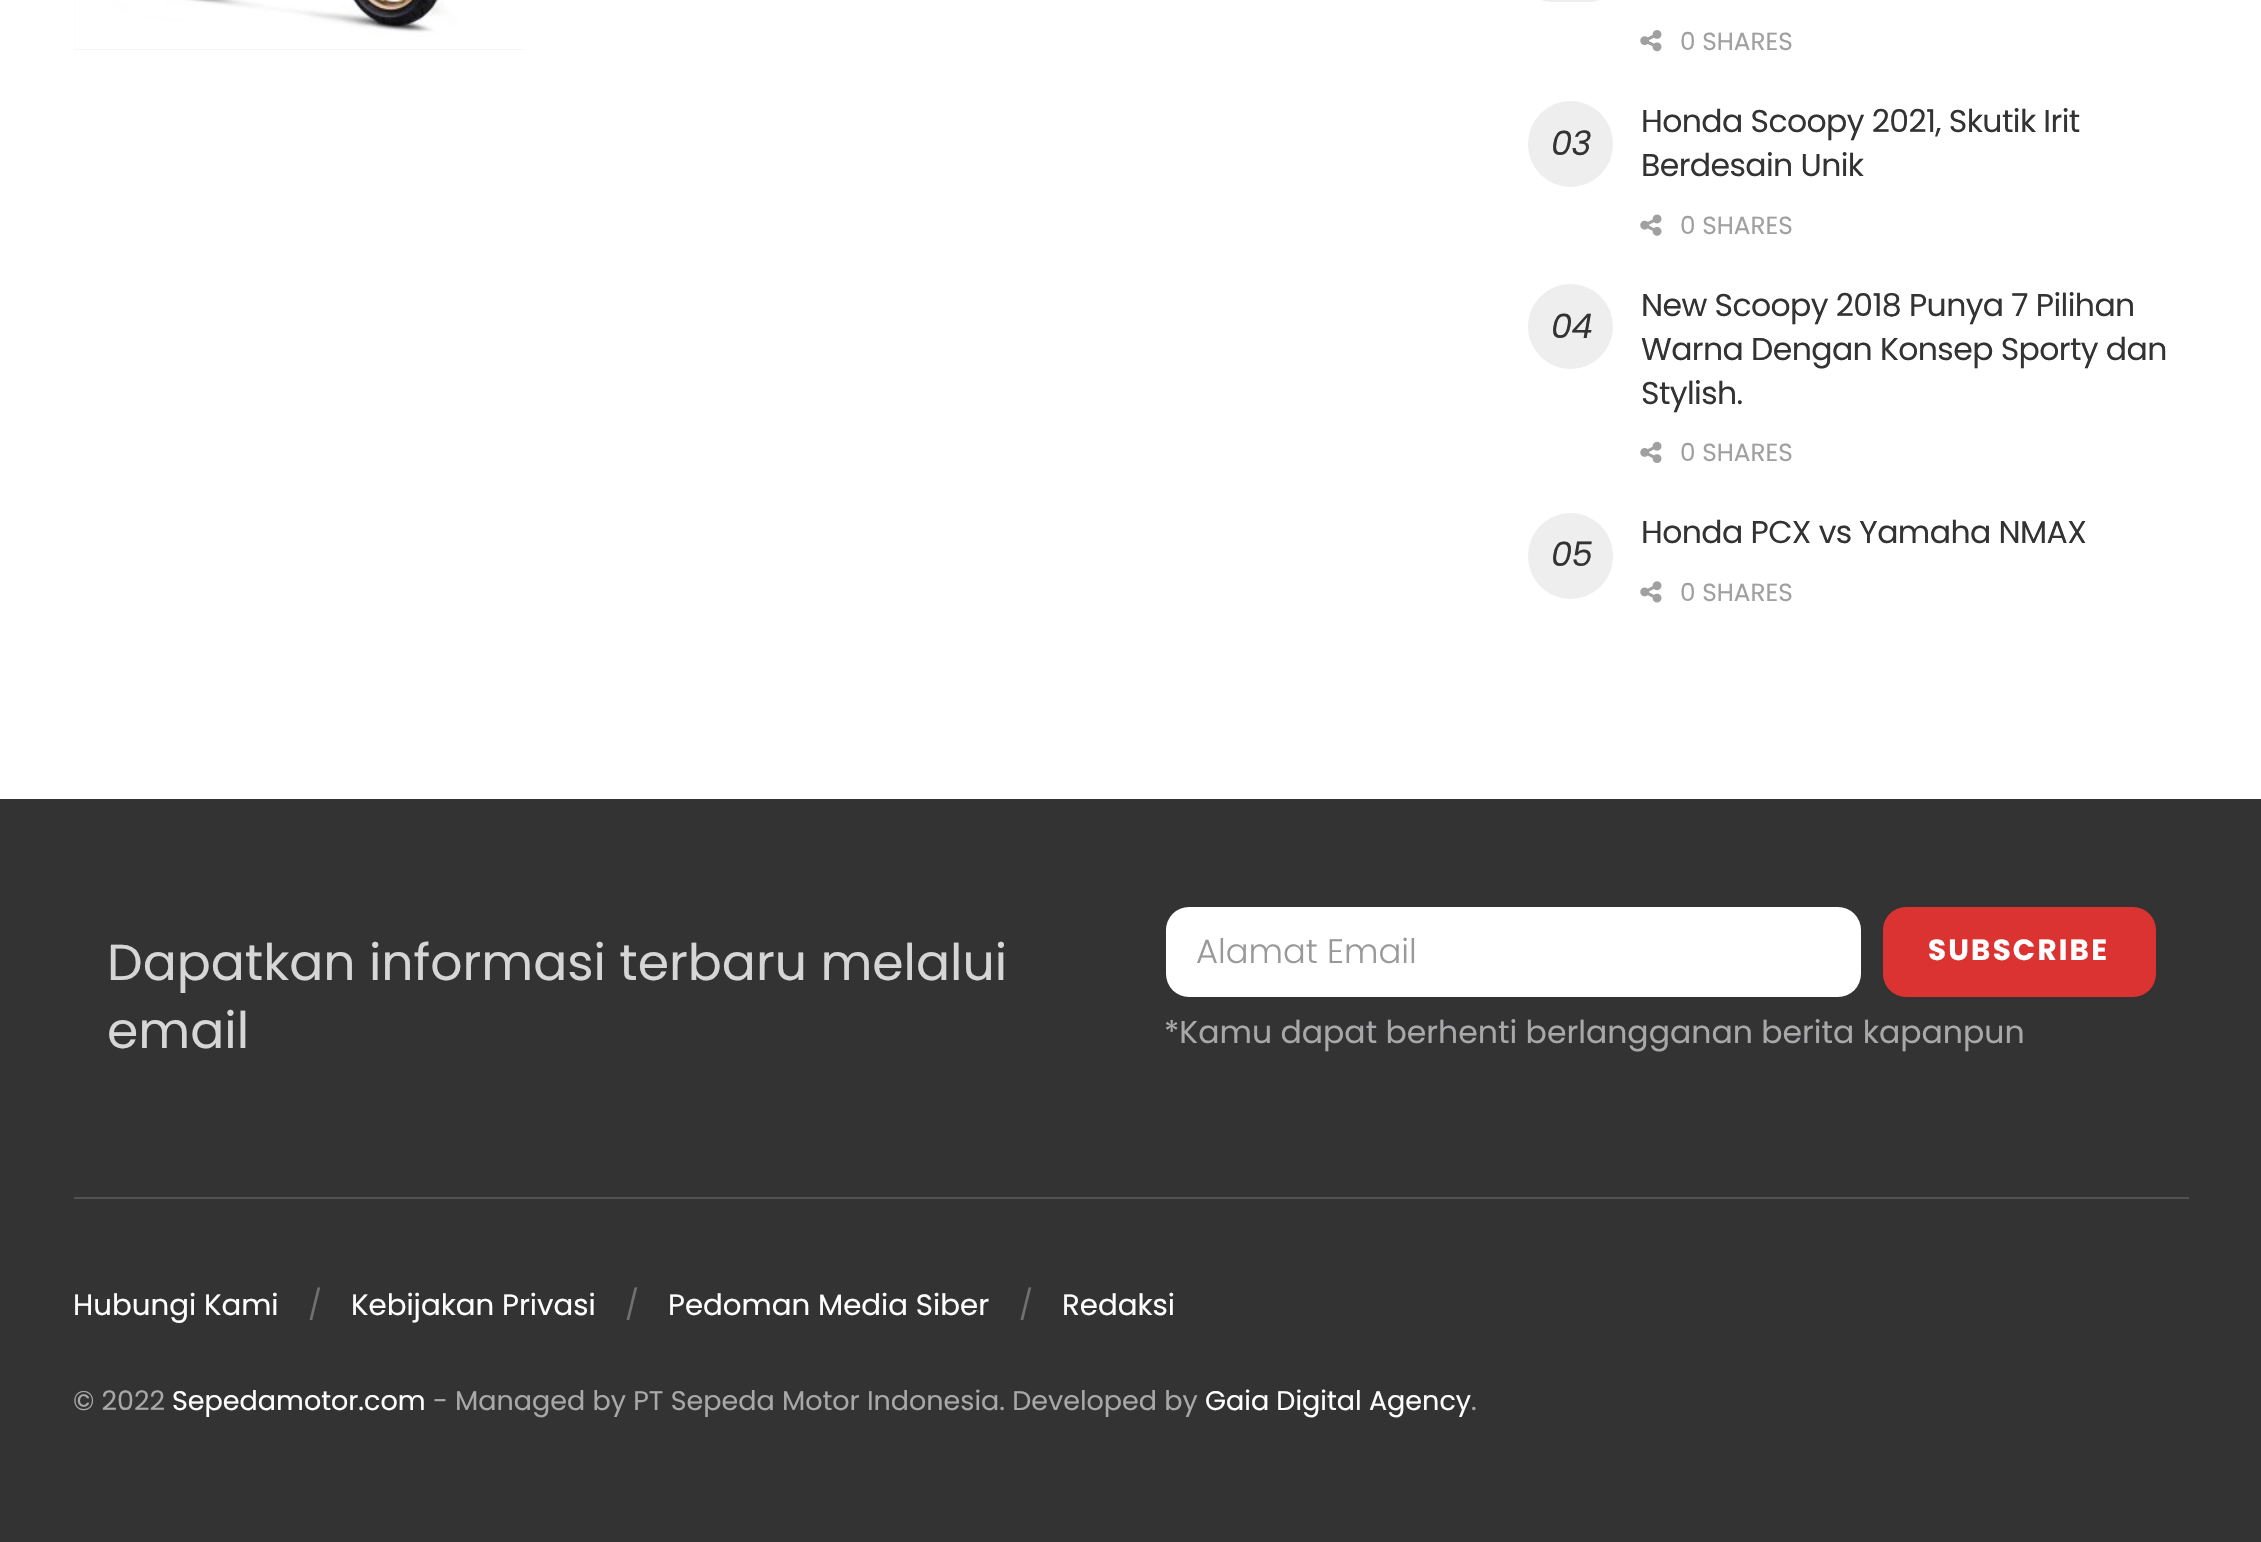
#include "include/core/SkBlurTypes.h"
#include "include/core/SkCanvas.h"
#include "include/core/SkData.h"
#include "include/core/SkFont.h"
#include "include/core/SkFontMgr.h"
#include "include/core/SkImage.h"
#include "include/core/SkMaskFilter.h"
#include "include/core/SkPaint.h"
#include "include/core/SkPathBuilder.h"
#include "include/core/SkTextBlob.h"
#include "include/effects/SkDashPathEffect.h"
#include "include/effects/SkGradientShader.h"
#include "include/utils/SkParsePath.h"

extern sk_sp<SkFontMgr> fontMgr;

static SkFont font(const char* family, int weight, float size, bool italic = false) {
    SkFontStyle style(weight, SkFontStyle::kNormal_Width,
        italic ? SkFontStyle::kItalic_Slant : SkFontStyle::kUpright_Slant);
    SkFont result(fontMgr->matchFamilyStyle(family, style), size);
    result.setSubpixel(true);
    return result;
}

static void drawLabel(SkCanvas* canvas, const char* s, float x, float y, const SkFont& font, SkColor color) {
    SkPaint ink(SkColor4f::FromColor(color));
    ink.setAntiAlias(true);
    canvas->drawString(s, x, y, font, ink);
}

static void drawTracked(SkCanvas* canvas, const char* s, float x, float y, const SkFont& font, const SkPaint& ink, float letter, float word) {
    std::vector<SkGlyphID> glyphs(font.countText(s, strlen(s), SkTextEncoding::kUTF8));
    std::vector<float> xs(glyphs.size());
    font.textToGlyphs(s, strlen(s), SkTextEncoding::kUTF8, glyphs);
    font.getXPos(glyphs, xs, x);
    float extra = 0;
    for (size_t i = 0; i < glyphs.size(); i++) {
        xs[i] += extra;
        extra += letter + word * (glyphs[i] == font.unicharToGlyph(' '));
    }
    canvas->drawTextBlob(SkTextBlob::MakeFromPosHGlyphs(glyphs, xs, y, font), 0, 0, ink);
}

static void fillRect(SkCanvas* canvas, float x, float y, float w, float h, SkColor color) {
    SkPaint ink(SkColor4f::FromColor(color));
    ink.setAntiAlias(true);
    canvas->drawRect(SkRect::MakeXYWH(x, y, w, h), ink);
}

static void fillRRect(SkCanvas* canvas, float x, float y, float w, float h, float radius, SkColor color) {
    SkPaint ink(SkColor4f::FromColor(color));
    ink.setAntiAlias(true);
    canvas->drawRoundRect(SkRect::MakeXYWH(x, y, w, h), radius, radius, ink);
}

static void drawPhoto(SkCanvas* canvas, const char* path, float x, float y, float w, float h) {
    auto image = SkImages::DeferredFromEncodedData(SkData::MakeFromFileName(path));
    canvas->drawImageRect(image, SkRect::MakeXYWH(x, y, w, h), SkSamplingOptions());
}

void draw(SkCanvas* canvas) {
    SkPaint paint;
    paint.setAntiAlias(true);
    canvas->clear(0xFFFFFFFF);
    fillRect(canvas, 74, 0, 450, 50, 0xFFF7F7F7);
    drawPhoto(canvas, "assets/img1.png", 74, 0, 450, 49);
    fillRRect(canvas, 1528, -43, 85, 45, 42.5f, 0xFFEEEEEE);
    drawPhoto(canvas, "assets/img2.png", 1640, 30, 22, 22);
    SkFont font1 = font("Poppins", 400, 24.75f);
    drawLabel(canvas, "0 SHARES", 1680, 50, font1, 0xFFA0A0A0);
    fillRRect(canvas, 1528, 101, 85, 86, 42.5f, 0xFFEEEEEE);
    SkFont font2 = font("Poppins", 400, 33.75f, true);
    paint.setColor(0xFF333333);
    drawTracked(canvas, "03", 1551, 155, font2, paint, -0.6f, 0);
    SkFont font3 = font("Poppins", 400, 31.5f);
    drawTracked(canvas, "Honda Scoopy 2021, Skutik Irit", 1641, 132, font3, paint, -0.6f, 0);
    drawTracked(canvas, "Berdesain Unik", 1641, 176, font3, paint, -0.6f, 0);
    drawPhoto(canvas, "assets/img3.png", 1640, 214, 22, 22);
    drawLabel(canvas, "0 SHARES", 1680, 234, font1, 0xFFA0A0A0);
    paint.setColor(0xFFEEEEEE);
    canvas->drawCircle(1570.5f, 326.5f, 42.5f, paint);
    paint.setColor(0xFF333333);
    drawTracked(canvas, "04", 1551, 338, font2, paint, -0.6f, 0);
    drawTracked(canvas, "New Scoopy 2018 Punya 7 Pilihan", 1641, 316, font3, paint, -0.6f, 0);
    drawTracked(canvas, "Warna Dengan Konsep Sporty dan", 1641, 360, font3, paint, -0.6f, 0);
    drawTracked(canvas, "Stylish.", 1641, 404, font3, paint, -0.6f, 0);
    drawPhoto(canvas, "assets/img4.png", 1640, 441, 22, 22);
    drawLabel(canvas, "0 SHARES", 1680, 461, font1, 0xFFA0A0A0);
    drawTracked(canvas, "Honda PCX vs Yamaha NMAX", 1641, 543, font3, paint, -0.6f, 0);
    fillRRect(canvas, 1528, 513, 85, 86, 42.5f, 0xFFEEEEEE);
    drawTracked(canvas, "05", 1551, 566, font2, paint, -0.6f, 0);
    drawPhoto(canvas, "assets/img5.png", 1640, 581, 22, 22);
    drawLabel(canvas, "0 SHARES", 1680, 601, font1, 0xFFA0A0A0);
    fillRect(canvas, 0, 799, 2261, 743, 0xFF333333);
    SkFont font4 = font("Poppins", 400, 50.4f);
    drawLabel(canvas, "Dapatkan informasi terbaru melalui", 107, 980, font4, 0xFFD6D6D6);
    drawLabel(canvas, "email", 107, 1048, font4, 0xFFD6D6D6);
    fillRRect(canvas, 1166, 907, 695, 90, 23, 0xFFFFFFFF);
    SkFont font5 = font("Poppins", 300, 33.75f);
    drawLabel(canvas, "Alamat Email", 1196, 963, font5, 0xFF999999);
    fillRRect(canvas, 1883, 907, 273, 90, 23, 0xFFDB3232);
    SkFont font6 = font("Poppins", 700, 29.25f);
    paint.setColor(0xFFFFFFFF);
    drawTracked(canvas, "SUBSCRIBE", 1928, 960, font6, paint, 2.25f, 0);
    drawLabel(canvas, "*Kamu dapat berhenti berlangganan berita kapanpun", 1164, 1043, font3, 0xFFA8A8AA);
    fillRect(canvas, 74, 1197, 2115, 2, 0xFF525252);
    SkFont font7 = font("Poppins", 400, 29.25f);
    drawLabel(canvas, "Hubungi Kami", 73, 1315, font7, 0xFFFFFFFF);
    drawLabel(canvas, "/", 308, 1315, font7, 0xFF707070);
    drawLabel(canvas, "Kebijakan Privasi", 351, 1315, font7, 0xFFFFFFFF);
    drawLabel(canvas, "/", 625, 1315, font7, 0xFF707070);
    drawLabel(canvas, "Pedoman Media Siber", 668, 1315, font7, 0xFFFFFFFF);
    drawLabel(canvas, "/", 1019, 1315, font7, 0xFF707070);
    drawLabel(canvas, "Redaksi", 1062, 1315, font7, 0xFFFFFFFF);
    SkFont font8 = font("Poppins", 400, 27);
    drawLabel(canvas, "© 2022", 73, 1410, font8, 0xFFA8A8AA);
    drawLabel(canvas, "Sepedamotor.com", 172, 1410, font8, 0xFFFFFFFF);
    drawLabel(canvas, "- Managed by PT Sepeda Motor Indonesia. Developed by", 433, 1410, font8, 0xFFA8A8AA);
    drawLabel(canvas, "Gaia Digital Agency", 1205, 1410, font8, 0xFFFFFFFF);
    drawLabel(canvas, ".", 1471, 1410, font8, 0xFFA8A8AA);
}
